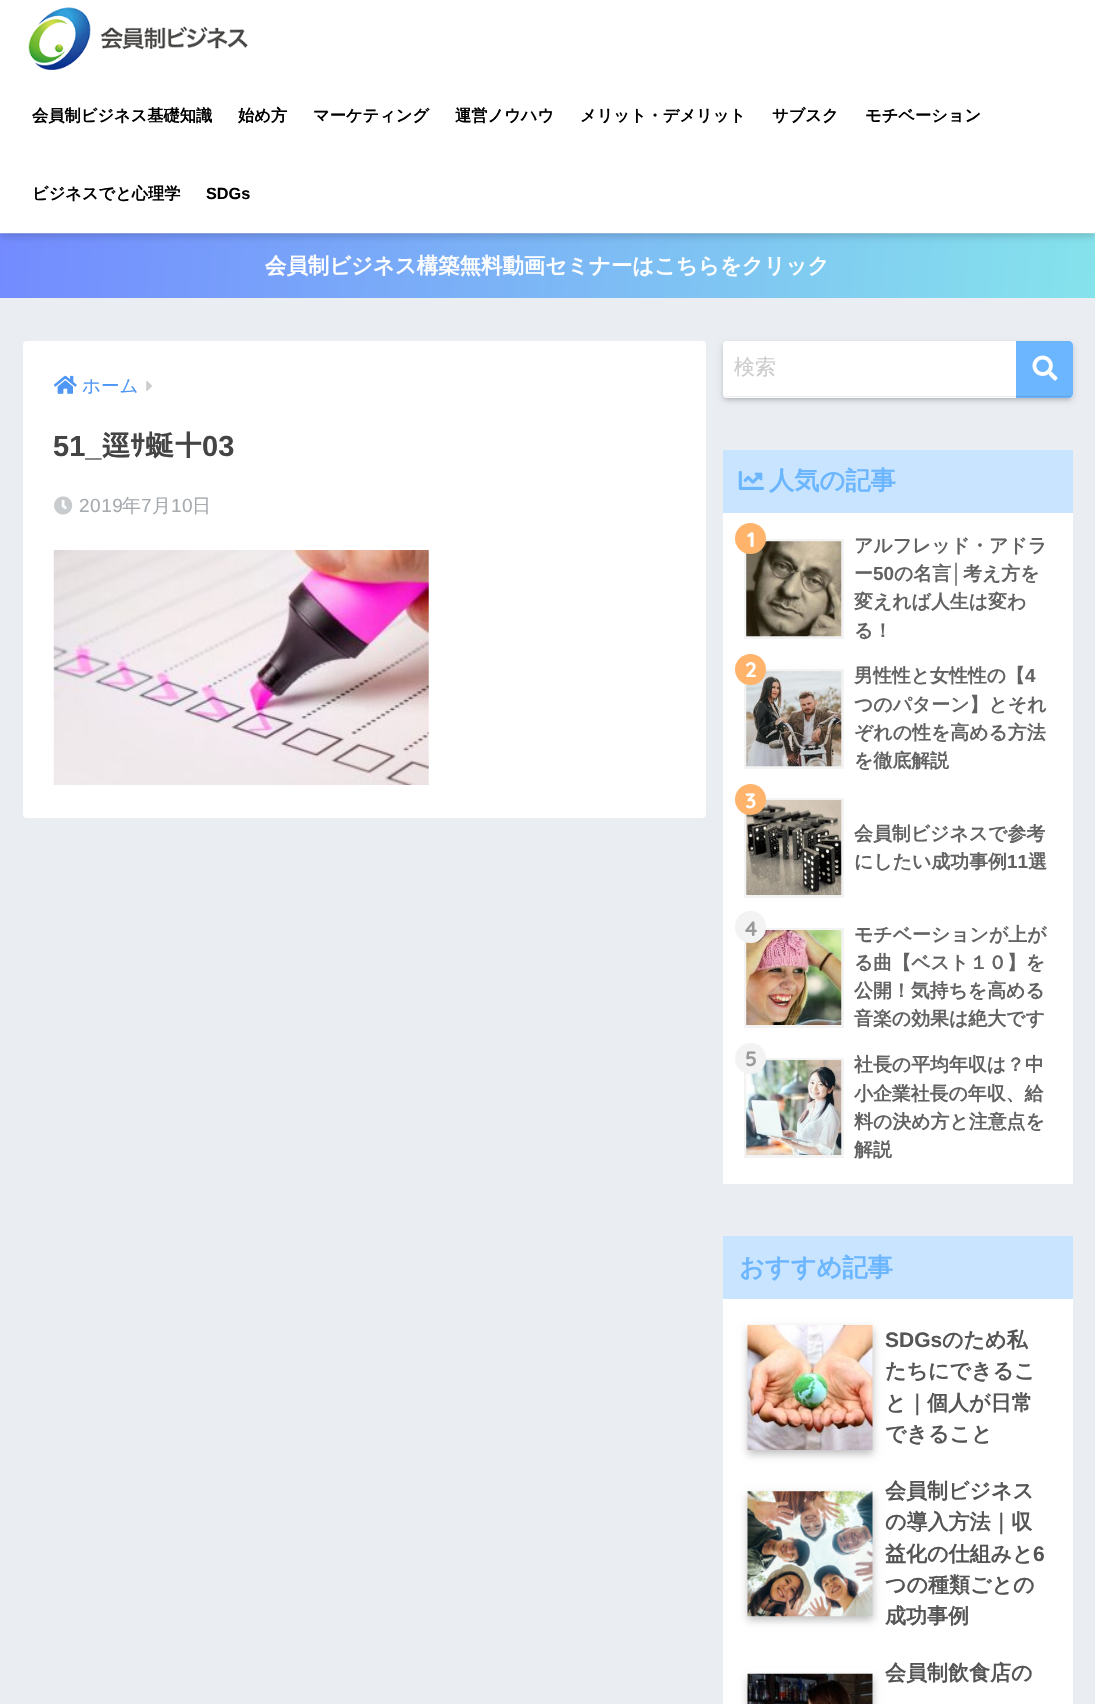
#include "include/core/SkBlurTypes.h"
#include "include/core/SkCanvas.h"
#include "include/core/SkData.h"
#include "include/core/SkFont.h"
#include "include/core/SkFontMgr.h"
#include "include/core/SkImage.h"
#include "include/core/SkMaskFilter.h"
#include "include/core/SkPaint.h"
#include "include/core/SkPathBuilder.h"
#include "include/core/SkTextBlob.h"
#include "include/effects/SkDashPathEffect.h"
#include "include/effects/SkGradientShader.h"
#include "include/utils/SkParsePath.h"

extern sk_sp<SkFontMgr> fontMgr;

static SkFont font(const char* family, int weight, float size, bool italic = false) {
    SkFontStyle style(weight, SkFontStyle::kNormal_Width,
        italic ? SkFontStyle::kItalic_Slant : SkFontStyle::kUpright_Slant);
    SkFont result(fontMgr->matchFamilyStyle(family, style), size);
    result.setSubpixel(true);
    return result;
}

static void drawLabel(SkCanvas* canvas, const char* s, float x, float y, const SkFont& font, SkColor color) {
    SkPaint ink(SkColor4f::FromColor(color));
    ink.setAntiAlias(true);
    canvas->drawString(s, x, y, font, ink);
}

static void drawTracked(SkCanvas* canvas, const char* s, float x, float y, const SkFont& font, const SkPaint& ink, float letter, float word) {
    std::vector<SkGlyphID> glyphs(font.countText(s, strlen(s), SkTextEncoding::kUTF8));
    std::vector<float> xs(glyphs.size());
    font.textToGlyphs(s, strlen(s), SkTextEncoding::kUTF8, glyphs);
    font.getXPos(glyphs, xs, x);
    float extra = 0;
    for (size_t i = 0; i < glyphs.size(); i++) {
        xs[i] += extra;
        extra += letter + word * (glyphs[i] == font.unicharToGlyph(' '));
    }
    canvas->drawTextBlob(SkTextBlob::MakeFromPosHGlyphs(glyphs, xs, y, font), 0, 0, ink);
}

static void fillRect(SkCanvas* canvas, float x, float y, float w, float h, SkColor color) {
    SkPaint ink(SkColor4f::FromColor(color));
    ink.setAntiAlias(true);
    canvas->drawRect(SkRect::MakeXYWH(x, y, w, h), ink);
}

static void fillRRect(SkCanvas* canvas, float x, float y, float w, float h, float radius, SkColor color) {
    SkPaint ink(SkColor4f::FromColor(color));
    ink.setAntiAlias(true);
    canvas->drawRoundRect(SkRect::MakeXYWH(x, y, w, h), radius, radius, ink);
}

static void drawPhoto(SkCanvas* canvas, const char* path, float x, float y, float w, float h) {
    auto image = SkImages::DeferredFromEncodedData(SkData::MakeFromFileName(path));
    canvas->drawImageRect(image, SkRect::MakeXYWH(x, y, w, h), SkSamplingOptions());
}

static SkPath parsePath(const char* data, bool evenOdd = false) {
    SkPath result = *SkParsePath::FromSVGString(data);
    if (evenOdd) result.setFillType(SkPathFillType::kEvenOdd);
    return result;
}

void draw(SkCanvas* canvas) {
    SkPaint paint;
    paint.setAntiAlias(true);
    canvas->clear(0xFFEAEDF2);
    {
        const SkColor colors[] = {0xFF9DAEFF, 0xFFAAEBF2};
        const float stops[] = {0, 1};
        const SkPoint ends[] = {{1.4f, 154}, {1094, 250}};
        paint.setShader(SkGradientShader::MakeLinear(ends, colors, stops, 2, SkTileMode::kClamp));
        paint.setAlpha(255);
    }
    canvas->drawRect(SkRect::MakeXYWH(0, 233, 1095, 1), paint);
    {
        const SkColor colors[] = {0xFF738BFF, 0xFF85E3EC};
        const float stops[] = {0, 1};
        const SkPoint ends[] = {{1.4f, 218}, {1094, 313}};
        paint.setShader(SkGradientShader::MakeLinear(ends, colors, stops, 2, SkTileMode::kClamp));
        paint.setAlpha(255);
    }
    canvas->drawRect(SkRect::MakeXYWH(0, 234, 1095, 64), paint);
    paint.setShader(nullptr);
    paint.setColor(0x2E000000);
    paint.setMaskFilter(SkMaskFilter::MakeBlur(kNormal_SkBlurStyle, 4));
    canvas->drawRect(SkRect::MakeXYWH(0, 4, 1095, 232), paint);
    paint.setMaskFilter(nullptr);
    fillRect(canvas, 0, 0, 1095, 233, 0xFFFFFFFF);
    drawPhoto(canvas, "assets/img1.png", 28, 7, 220, 63);
    SkFont font1 = font("WenQuanYi Zen Hei", 700, 16.25f);
    drawLabel(canvas, "会員制ビジネス基礎知識", 32, 121, font1, 0xFF000000);
    drawLabel(canvas, "始め方", 238, 121, font1, 0xFF000000);
    drawLabel(canvas, "マーケティング", 313, 121, font1, 0xFF000000);
    drawLabel(canvas, "運営ノウハウ", 455, 121, font1, 0xFF000000);
    drawLabel(canvas, "メリット・デメリット", 580, 121, font1, 0xFF000000);
    drawLabel(canvas, "サブスク", 772, 121, font1, 0xFF000000);
    drawLabel(canvas, "モチベーション", 865, 121, font1, 0xFF000000);
    drawLabel(canvas, "ビジネスでと心理学", 32, 199, font1, 0xFF000000);
    SkFont font2 = font("Liberation Sans", 700, 16.25f);
    drawLabel(canvas, "SDGs", 206, 199, font2, 0xFF000000);
    SkFont font3 = font("WenQuanYi Zen Hei", 700, 21.4f);
    drawLabel(canvas, "会員制ビジネス構築無料動画セミナーはこちらをクリック", 265, 273, font3, 0xFFFFFFFF);
    fillRRect(canvas, 23, 341, 683, 477, 4, 0xFFFFFFFF);
    drawPhoto(canvas, "assets/img2.png", 53, 375, 24, 19);
    SkFont font4 = font("WenQuanYi Zen Hei", 500, 18.5f);
    drawLabel(canvas, "ホーム", 82, 392, font4, 0xFF4F96F6);
    drawPhoto(canvas, "assets/img3.png", 146, 381, 6, 10);
    SkFont font5 = font("Liberation Sans", 700, 29);
    drawLabel(canvas, "51_", 53, 456, font5, 0xFF444444);
    SkFont font6 = font("IPAPGothic", 700, 29);
    drawLabel(canvas, "逕ｻ蜒十", 101, 456, font6, 0xFF444444);
    drawLabel(canvas, "03", 202, 456, font5, 0xFF444444);
    drawPhoto(canvas, "assets/img4.png", 54, 496, 19, 19);
    SkFont font7 = font("Liberation Sans", 400, 19);
    paint.setColor(0xFFA5AAAF);
    drawTracked(canvas, "2019", 79, 512, font7, paint, 0.5f, 0);
    SkFont font8 = font("WenQuanYi Zen Hei", 500, 19);
    drawTracked(canvas, "年", 122, 512, font8, paint, 0.5f, 0);
    drawTracked(canvas, "7", 141, 512, font7, paint, 0.5f, 0);
    drawTracked(canvas, "月", 152, 512, font8, paint, 0.5f, 0);
    drawTracked(canvas, "10", 171, 512, font7, paint, 0.5f, 0);
    drawTracked(canvas, "日", 192, 512, font8, paint, 0.5f, 0);
    drawPhoto(canvas, "assets/img5.png", 53, 550, 376, 235);
    paint.setColor(0x26000000);
    paint.setMaskFilter(SkMaskFilter::MakeBlur(kNormal_SkBlurStyle, 2));
    canvas->drawRoundRect(SkRect::MakeXYWH(725, 348, 345, 51), 1, 1, paint);
    paint.setMaskFilter(nullptr);
    paint.setMaskFilter(SkMaskFilter::MakeBlur(kNormal_SkBlurStyle, 3));
    canvas->drawRoundRect(SkRect::MakeXYWH(723, 344, 350, 56), 4, 4, paint);
    paint.setMaskFilter(nullptr);
    fillRRect(canvas, 723, 341, 350, 57, 4, 0xFFFFFFFF);
    fillRect(canvas, 725, 396, 291, 1, 0xFFEFEFEF);
    SkFont font9 = font("WenQuanYi Zen Hei", 500, 21);
    drawLabel(canvas, "検索", 734, 374, font9, 0xFFCCCCCC);
    paint.setColor(0xFF6BB6FF);
    canvas->drawPath(parsePath("M1016 341H1069C1071 341 1073 343 1073 345V394C1073 396 1071 398 1069 398H1016Z"), paint);
    fillRect(canvas, 1016, 396, 55, 1, 0xFF60A4E6);
    drawPhoto(canvas, "assets/img6.png", 1032, 355, 26, 26);
    fillRect(canvas, 723, 513, 350, 671, 0xFFFFFFFF);
    fillRect(canvas, 723, 450, 350, 63, 0xFFC8E4FF);
    drawPhoto(canvas, "assets/img7.png", 738, 471, 26, 19);
    SkFont font10 = font("WenQuanYi Zen Hei", 700, 25.25f);
    drawLabel(canvas, "人気の記事", 769, 489, font10, 0xFF6BB6FF);
    paint.setStroke(true);
    paint.setStrokeWidth(3);
    paint.setColor(0xFFF3F3F3);
    canvas->drawRect(SkRect::MakeXYWH(745.5f, 540.5f, 97, 97), paint);
    drawPhoto(canvas, "assets/img8.png", 746, 541, 96, 96);
    paint.setStroke(false);
    paint.setColor(0xFFFFB36B);
    canvas->drawCircle(750.5f, 538.5f, 15.5f, paint);
    SkFont font11 = font("Quicksand", 700, 21);
    drawLabel(canvas, "1", 747, 547, font11, 0xFFFFFFFF);
    SkFont font12 = font("WenQuanYi Zen Hei", 700, 18.9f);
    drawLabel(canvas, "アルフレッド・アドラ", 854, 552, font12, 0xFF626262);
    drawLabel(canvas, "ー", 854, 580, font12, 0xFF626262);
    SkFont font13 = font("Liberation Sans", 700, 18.9f);
    drawLabel(canvas, "50", 873, 580, font13, 0xFF626262);
    drawLabel(canvas, "の名言", 894, 580, font12, 0xFF626262);
    drawLabel(canvas, "│", 951, 580, font13, 0xFF626262);
    drawLabel(canvas, "考え方を", 963, 580, font12, 0xFF626262);
    drawLabel(canvas, "変えれば人生は変わ", 854, 608, font12, 0xFF626262);
    drawLabel(canvas, "る！", 854, 637, font12, 0xFF626262);
    paint.setStroke(true);
    paint.setColor(0xFFF3F3F3);
    canvas->drawRect(SkRect::MakeXYWH(745.5f, 670.5f, 97, 97), paint);
    drawPhoto(canvas, "assets/img9.png", 746, 671, 96, 96);
    paint.setStroke(false);
    paint.setColor(0xFFFFB36B);
    canvas->drawCircle(750.5f, 669.5f, 15.5f, paint);
    drawLabel(canvas, "2", 745, 677, font11, 0xFFFFFFFF);
    drawLabel(canvas, "男性性と女性性の【", 854, 682, font12, 0xFF626262);
    drawLabel(canvas, "4", 1025, 682, font13, 0xFF626262);
    drawLabel(canvas, "つのパターン】とそれ", 854, 711, font12, 0xFF626262);
    drawLabel(canvas, "ぞれの性を高める方法", 854, 739, font12, 0xFF626262);
    drawLabel(canvas, "を徹底解説", 854, 767, font12, 0xFF626262);
    paint.setStroke(true);
    paint.setColor(0xFFF3F3F3);
    canvas->drawRect(SkRect::MakeXYWH(745.5f, 799.5f, 97, 97), paint);
    drawPhoto(canvas, "assets/img10.png", 746, 800, 96, 95);
    paint.setStroke(false);
    paint.setColor(0xFFFFB36B);
    canvas->drawCircle(750.5f, 799.5f, 15.5f, paint);
    drawLabel(canvas, "3", 745, 808, font11, 0xFFFFFFFF);
    drawLabel(canvas, "会員制ビジネスで参考", 854, 840, font12, 0xFF626262);
    drawLabel(canvas, "にしたい成功事例", 854, 868, font12, 0xFF626262);
    drawLabel(canvas, "11", 1007, 868, font13, 0xFF626262);
    drawLabel(canvas, "選", 1028, 868, font12, 0xFF626262);
    paint.setStroke(true);
    paint.setColor(0xFFF3F3F3);
    canvas->drawRect(SkRect::MakeXYWH(745.5f, 929.5f, 97, 97), paint);
    drawPhoto(canvas, "assets/img11.png", 746, 930, 96, 95);
    fillRRect(canvas, 735, 911, 31, 32, 15.5f, 0xFFF3F3F3);
    drawLabel(canvas, "4", 745, 936, font11, 0xFF9A9A9A);
    drawLabel(canvas, "モチベーションが上が", 854, 941, font12, 0xFF626262);
    drawLabel(canvas, "る曲【ベスト１０】を", 854, 969, font12, 0xFF626262);
    drawLabel(canvas, "公開！気持ちを高める", 854, 997, font12, 0xFF626262);
    drawLabel(canvas, "音楽の効果は絶大です", 854, 1025, font12, 0xFF626262);
    canvas->drawRect(SkRect::MakeXYWH(745.5f, 1059.5f, 97, 97), paint);
    drawPhoto(canvas, "assets/img12.png", 746, 1060, 96, 95);
    paint.setStroke(false);
    canvas->drawCircle(750.5f, 1058.5f, 15.5f, paint);
    drawLabel(canvas, "5", 745, 1066, font11, 0xFF9A9A9A);
    drawLabel(canvas, "社長の平均年収は？中", 854, 1071, font12, 0xFF626262);
    drawLabel(canvas, "小企業社長の年収、給", 854, 1100, font12, 0xFF626262);
    drawLabel(canvas, "料の決め方と注意点を", 854, 1128, font12, 0xFF626262);
    drawLabel(canvas, "解説", 854, 1156, font12, 0xFF626262);
    fillRect(canvas, 723, 1299, 350, 405, 0xFFFFFFFF);
    fillRect(canvas, 723, 1236, 350, 63, 0xFFC8E4FF);
    drawLabel(canvas, "おすすめ記事", 739, 1276, font10, 0xFF6BB6FF);
    paint.setColor(0x40000000);
    paint.setMaskFilter(SkMaskFilter::MakeBlur(kNormal_SkBlurStyle, 4));
    canvas->drawRect(SkRect::MakeXYWH(748, 1329, 125, 125), paint);
    paint.setMaskFilter(nullptr);
    drawPhoto(canvas, "assets/img13.png", 747, 1325, 126, 125);
    SkFont font14 = font("Liberation Sans", 700, 21);
    drawLabel(canvas, "SDGs", 885, 1347, font14, 0xFF555555);
    SkFont font15 = font("WenQuanYi Zen Hei", 700, 21);
    drawLabel(canvas, "のため私", 942, 1347, font15, 0xFF555555);
    drawLabel(canvas, "たちにできるこ", 885, 1378, font15, 0xFF555555);
    drawLabel(canvas, "と｜個人が日常", 885, 1410, font15, 0xFF555555);
    drawLabel(canvas, "できること", 885, 1441, font15, 0xFF555555);
    paint.setMaskFilter(SkMaskFilter::MakeBlur(kNormal_SkBlurStyle, 4));
    canvas->drawRect(SkRect::MakeXYWH(748, 1495, 125, 125), paint);
    paint.setMaskFilter(nullptr);
    drawPhoto(canvas, "assets/img14.png", 747, 1491, 126, 126);
    drawLabel(canvas, "会員制ビジネス", 885, 1498, font15, 0xFF555555);
    drawLabel(canvas, "の導入方法｜収", 885, 1529, font15, 0xFF555555);
    drawLabel(canvas, "益化の仕組みと", 885, 1561, font15, 0xFF555555);
    drawLabel(canvas, "6", 1033, 1561, font14, 0xFF555555);
    drawLabel(canvas, "つの種類ごとの", 885, 1592, font15, 0xFF555555);
    drawLabel(canvas, "成功事例", 885, 1623, font15, 0xFF555555);
    paint.setMaskFilter(SkMaskFilter::MakeBlur(kNormal_SkBlurStyle, 4));
    canvas->drawRect(SkRect::MakeXYWH(748, 1678, 125, 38), paint);
    paint.setMaskFilter(nullptr);
    drawPhoto(canvas, "assets/img15.png", 747, 1673, 126, 31);
    drawLabel(canvas, "会員制飲食店の", 885, 1680, font15, 0xFF555555);
}
